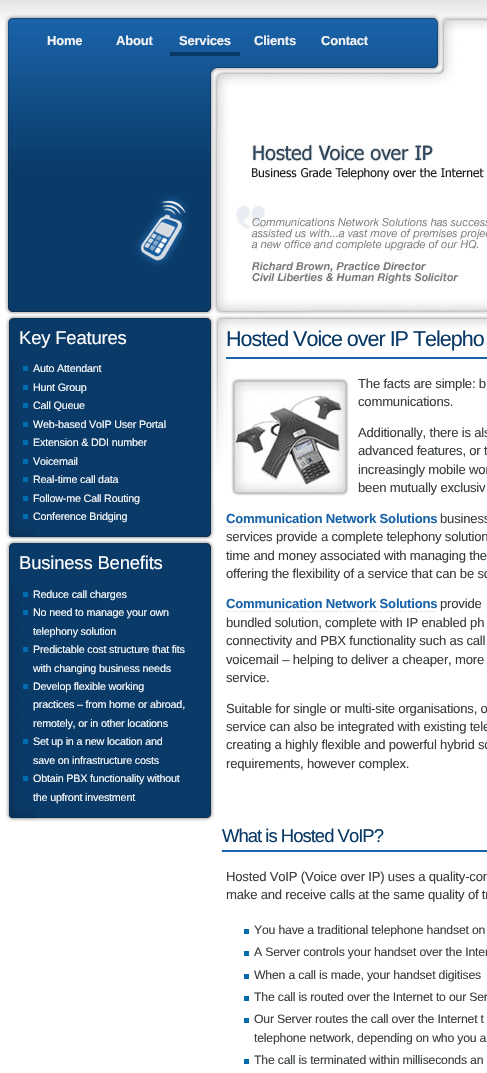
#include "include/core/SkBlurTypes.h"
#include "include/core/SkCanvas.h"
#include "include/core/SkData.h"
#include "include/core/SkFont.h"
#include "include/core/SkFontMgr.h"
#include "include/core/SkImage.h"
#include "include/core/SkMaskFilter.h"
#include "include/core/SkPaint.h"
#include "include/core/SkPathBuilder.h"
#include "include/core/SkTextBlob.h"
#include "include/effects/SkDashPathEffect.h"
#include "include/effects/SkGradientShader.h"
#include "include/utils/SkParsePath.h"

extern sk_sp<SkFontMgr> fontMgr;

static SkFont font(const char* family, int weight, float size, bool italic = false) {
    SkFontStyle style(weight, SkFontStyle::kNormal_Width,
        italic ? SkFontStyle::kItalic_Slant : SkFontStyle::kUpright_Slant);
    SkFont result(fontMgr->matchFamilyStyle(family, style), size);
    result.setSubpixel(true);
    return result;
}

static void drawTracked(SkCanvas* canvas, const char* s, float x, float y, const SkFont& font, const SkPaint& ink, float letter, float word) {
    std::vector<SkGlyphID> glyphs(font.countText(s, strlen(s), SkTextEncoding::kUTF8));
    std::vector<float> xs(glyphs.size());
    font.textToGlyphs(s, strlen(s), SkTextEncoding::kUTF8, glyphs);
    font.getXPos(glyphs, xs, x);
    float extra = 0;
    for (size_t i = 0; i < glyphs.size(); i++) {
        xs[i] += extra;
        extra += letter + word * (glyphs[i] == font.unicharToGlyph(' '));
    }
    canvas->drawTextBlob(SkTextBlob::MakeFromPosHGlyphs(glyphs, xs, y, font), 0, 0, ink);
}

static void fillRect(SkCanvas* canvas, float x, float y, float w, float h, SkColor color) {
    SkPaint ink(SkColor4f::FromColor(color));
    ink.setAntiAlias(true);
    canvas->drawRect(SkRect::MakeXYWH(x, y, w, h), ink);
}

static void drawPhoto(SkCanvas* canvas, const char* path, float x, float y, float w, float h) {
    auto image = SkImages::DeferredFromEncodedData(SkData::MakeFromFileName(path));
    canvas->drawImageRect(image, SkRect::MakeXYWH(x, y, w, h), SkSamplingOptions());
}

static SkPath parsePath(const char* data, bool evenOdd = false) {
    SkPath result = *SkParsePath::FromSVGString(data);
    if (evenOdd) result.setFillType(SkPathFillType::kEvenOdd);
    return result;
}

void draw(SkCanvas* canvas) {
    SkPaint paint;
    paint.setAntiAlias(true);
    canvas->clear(0xFFFFFFFF);
    drawPhoto(canvas, "assets/img1.png", 0, 0, 487, 316);
    SkFont font1 = font("Liberation Sans", 700, 13);
    paint.setColor(0xFFF5F5F5);
    drawTracked(canvas, "Home", 47, 45, font1, paint, -0.2f, 0);
    drawTracked(canvas, "About", 116, 45, font1, paint, -0.2f, 0);
    fillRect(canvas, 170, 52, 70, 4, 0xFF0A3A67);
    drawTracked(canvas, "Services", 179, 45, font1, paint, -0.2f, 0);
    drawTracked(canvas, "Clients", 254, 45, font1, paint, -0.2f, 0);
    drawTracked(canvas, "Contact", 321, 45, font1, paint, -0.2f, 0);
    drawPhoto(canvas, "assets/img2.png", 13, 322, 202, 217);
    drawPhoto(canvas, "assets/img3.png", 13, 314, 202, 8);
    drawPhoto(canvas, "assets/img4.png", 5, 314, 8, 45);
    SkFont font2 = font("Liberation Sans", 400, 18.5f);
    paint.setColor(0xFFFFFFFF);
    drawTracked(canvas, "Key Features", 19, 344, font2, paint, -0.2f, 0);
    drawPhoto(canvas, "assets/img5.png", 5, 359, 30, 180);
    fillRect(canvas, 23, 366, 5, 5, 0xFF006BAD);
    SkFont font3 = font("Liberation Sans", 400, 10.75f);
    drawTracked(canvas, "Auto Attendant", 33, 372, font3, paint, -0.2f, 0);
    fillRect(canvas, 23, 385, 5, 5, 0xFF006BAD);
    drawTracked(canvas, "Hunt Group", 33, 391, font3, paint, -0.2f, 0);
    fillRect(canvas, 23, 403, 5, 5, 0xFF006BAD);
    drawTracked(canvas, "Call Queue", 33, 409, font3, paint, -0.2f, 0);
    fillRect(canvas, 23, 422, 5, 5, 0xFF006BAD);
    drawTracked(canvas, "Web-based VoIP User Portal", 33, 428, font3, paint, -0.2f, 0);
    fillRect(canvas, 23, 440, 5, 5, 0xFF006BAD);
    drawTracked(canvas, "Extension & DDI number", 33, 446, font3, paint, -0.2f, 0);
    fillRect(canvas, 23, 459, 5, 5, 0xFF006BAD);
    drawTracked(canvas, "Voicemail", 33, 465, font3, paint, -0.2f, 0);
    fillRect(canvas, 23, 477, 5, 5, 0xFF006BAD);
    drawTracked(canvas, "Real-time call data", 33, 483, font3, paint, -0.2f, 0);
    fillRect(canvas, 23, 496, 5, 5, 0xFF006BAD);
    drawTracked(canvas, "Follow-me Call Routing", 33, 502, font3, paint, -0.2f, 0);
    fillRect(canvas, 23, 514, 5, 5, 0xFF006BAD);
    drawTracked(canvas, "Conference Bridging", 33, 520, font3, paint, -0.2f, 0);
    drawPhoto(canvas, "assets/img6.png", 13, 547, 202, 275);
    drawPhoto(canvas, "assets/img7.png", 13, 539, 202, 8);
    drawPhoto(canvas, "assets/img8.png", 5, 539, 8, 46);
    drawTracked(canvas, "Business Benefits", 19, 569, font2, paint, -0.2f, 0);
    drawPhoto(canvas, "assets/img9.png", 5, 585, 30, 237);
    fillRect(canvas, 23, 592, 5, 5, 0xFF006BAD);
    drawTracked(canvas, "Reduce call charges", 33, 598, font3, paint, -0.2f, 0);
    fillRect(canvas, 23, 610, 5, 5, 0xFF006BAD);
    drawTracked(canvas, "No need to manage your own", 33, 616, font3, paint, -0.2f, 0);
    drawTracked(canvas, "telephony solution", 33, 635, font3, paint, -0.2f, 0);
    fillRect(canvas, 23, 647, 5, 5, 0xFF006BAD);
    drawTracked(canvas, "Predictable cost structure that fits", 33, 653, font3, paint, -0.2f, 0);
    drawTracked(canvas, "with changing business needs", 33, 672, font3, paint, -0.2f, 0);
    fillRect(canvas, 23, 684, 5, 5, 0xFF006BAD);
    drawTracked(canvas, "Develop flexible working", 33, 690, font3, paint, -0.2f, 0);
    drawTracked(canvas, "practices – from home or abroad,", 33, 708, font3, paint, -0.2f, 0);
    drawTracked(canvas, "remotely, or in other locations", 33, 727, font3, paint, -0.2f, 0);
    fillRect(canvas, 23, 739, 5, 5, 0xFF006BAD);
    drawTracked(canvas, "Set up in a new location and", 33, 745, font3, paint, -0.2f, 0);
    drawTracked(canvas, "save on infrastructure costs", 33, 764, font3, paint, -0.2f, 0);
    fillRect(canvas, 23, 776, 5, 5, 0xFF006BAD);
    drawTracked(canvas, "Obtain PBX functionality without", 33, 782, font3, paint, -0.2f, 0);
    drawTracked(canvas, "the upfront investment", 33, 801, font3, paint, -0.2f, 0);
    drawPhoto(canvas, "assets/img10.png", 214, 315, 273, 190);
    fillRect(canvas, 226, 357, 261, 2, 0xFF1963A9);
    SkFont font4 = font("Liberation Sans", 400, 21.5f);
    paint.setColor(0xFF0A3A67);
    drawTracked(canvas, "Hosted Voice over IP Telepho", 226, 346, font4, paint, -1, 0);
    drawPhoto(canvas, "assets/img11.png", 231, 378, 118, 118);
    SkFont font5 = font("Liberation Sans", 400, 13.1f);
    paint.setColor(0xFF3A3F3E);
    drawTracked(canvas, "The facts are simple: b", 358, 388, font5, paint, -0.2f, 0);
    drawTracked(canvas, "communications.", 358, 406, font5, paint, -0.2f, 0);
    drawTracked(canvas, "Additionally, there is als", 358, 437, font5, paint, -0.2f, 0);
    drawTracked(canvas, "advanced features, or t", 358, 455, font5, paint, -0.2f, 0);
    drawTracked(canvas, "increasingly mobile wor", 358, 474, font5, paint, -0.2f, 0);
    drawTracked(canvas, "been mutually exclusiv", 358, 492, font5, paint, -0.2f, 0);
    SkFont font6 = font("Liberation Sans", 700, 13.1f);
    paint.setColor(0xFF1963A9);
    drawTracked(canvas, "Communication Network Solutions", 226, 523, font6, paint, -0.2f, 0);
    paint.setStroke(true);
    paint.setStrokeWidth(1);
    paint.setColor(0xFFDDDDDD);
    paint.setPathEffect(SkDashPathEffect::Make({{1, 1}}, 0));
    canvas->drawPath(parsePath("M226 526.5H437"), paint);
    paint.setPathEffect(nullptr);
    paint.setStroke(false);
    paint.setColor(0xFF3A3F3E);
    drawTracked(canvas, "business", 440, 523, font5, paint, -0.2f, 0);
    drawTracked(canvas, "services provide a complete telephony solution", 226, 541, font5, paint, -0.2f, 0);
    drawTracked(canvas, "time and money associated with managing the", 226, 560, font5, paint, -0.2f, 0);
    drawTracked(canvas, "offering the flexibility of a service that can be sc", 226, 578, font5, paint, -0.2f, 0);
    paint.setColor(0xFF1963A9);
    drawTracked(canvas, "Communication Network Solutions", 226, 608, font6, paint, -0.2f, 0);
    paint.setStroke(true);
    paint.setColor(0xFFDDDDDD);
    paint.setPathEffect(SkDashPathEffect::Make({{1, 1}}, 0));
    canvas->drawPath(parsePath("M226 611.5H437"), paint);
    paint.setPathEffect(nullptr);
    paint.setStroke(false);
    paint.setColor(0xFF3A3F3E);
    drawTracked(canvas, "provide", 440, 608, font5, paint, -0.2f, 0);
    drawTracked(canvas, "bundled solution, complete with IP enabled ph", 226, 627, font5, paint, -0.2f, 0);
    drawTracked(canvas, "connectivity and PBX functionality such as call", 226, 645, font5, paint, -0.2f, 0);
    drawTracked(canvas, "voicemail – helping to deliver a cheaper, more", 226, 664, font5, paint, -0.2f, 0);
    drawTracked(canvas, "service.", 226, 682, font5, paint, -0.2f, 0);
    drawTracked(canvas, "Suitable for single or multi-site organisations, o", 226, 713, font5, paint, -0.2f, 0);
    drawTracked(canvas, "service can also be integrated with existing tele", 226, 731, font5, paint, -0.2f, 0);
    drawTracked(canvas, "creating a highly flexible and powerful hybrid so", 226, 749, font5, paint, -0.2f, 0);
    drawTracked(canvas, "requirements, however complex.", 226, 768, font5, paint, -0.2f, 0);
    fillRect(canvas, 222, 850, 265, 2, 0xFF1963A9);
    paint.setColor(0xFF0A3A67);
    drawTracked(canvas, "What is Hosted VoIP?", 222, 842, font2, paint, -1, 0);
    paint.setColor(0xFF3A3F3E);
    drawTracked(canvas, "Hosted VoIP (Voice over IP) uses a quality-con", 226, 881, font5, paint, -0.2f, 0);
    drawTracked(canvas, "make and receive calls at the same quality of tr", 226, 899, font5, paint, -0.2f, 0);
    fillRect(canvas, 244, 929, 5, 5, 0xFF006BAD);
    SkFont font7 = font("Liberation Sans", 400, 12.25f);
    drawTracked(canvas, "You have a traditional telephone handset on", 254, 934, font7, paint, -0.2f, 0);
    fillRect(canvas, 244, 951, 5, 5, 0xFF006BAD);
    drawTracked(canvas, "A Server controls your handset over the Inter", 254, 956, font7, paint, -0.2f, 0);
    fillRect(canvas, 244, 974, 5, 5, 0xFF006BAD);
    drawTracked(canvas, "When a call is made, your handset digitises", 254, 979, font7, paint, -0.2f, 0);
    fillRect(canvas, 244, 996, 5, 5, 0xFF006BAD);
    drawTracked(canvas, "The call is routed over the Internet to our Ser", 254, 1001, font7, paint, -0.2f, 0);
    fillRect(canvas, 244, 1018, 5, 5, 0xFF006BAD);
    drawTracked(canvas, "Our Server routes the call over the Internet t", 254, 1023, font7, paint, -0.2f, 0);
    drawTracked(canvas, "telephone network, depending on who you a", 254, 1042, font7, paint, -0.2f, 0);
    fillRect(canvas, 244, 1059, 5, 5, 0xFF006BAD);
    drawTracked(canvas, "The call is terminated within milliseconds an", 254, 1064, font7, paint, -0.2f, 0);
}
